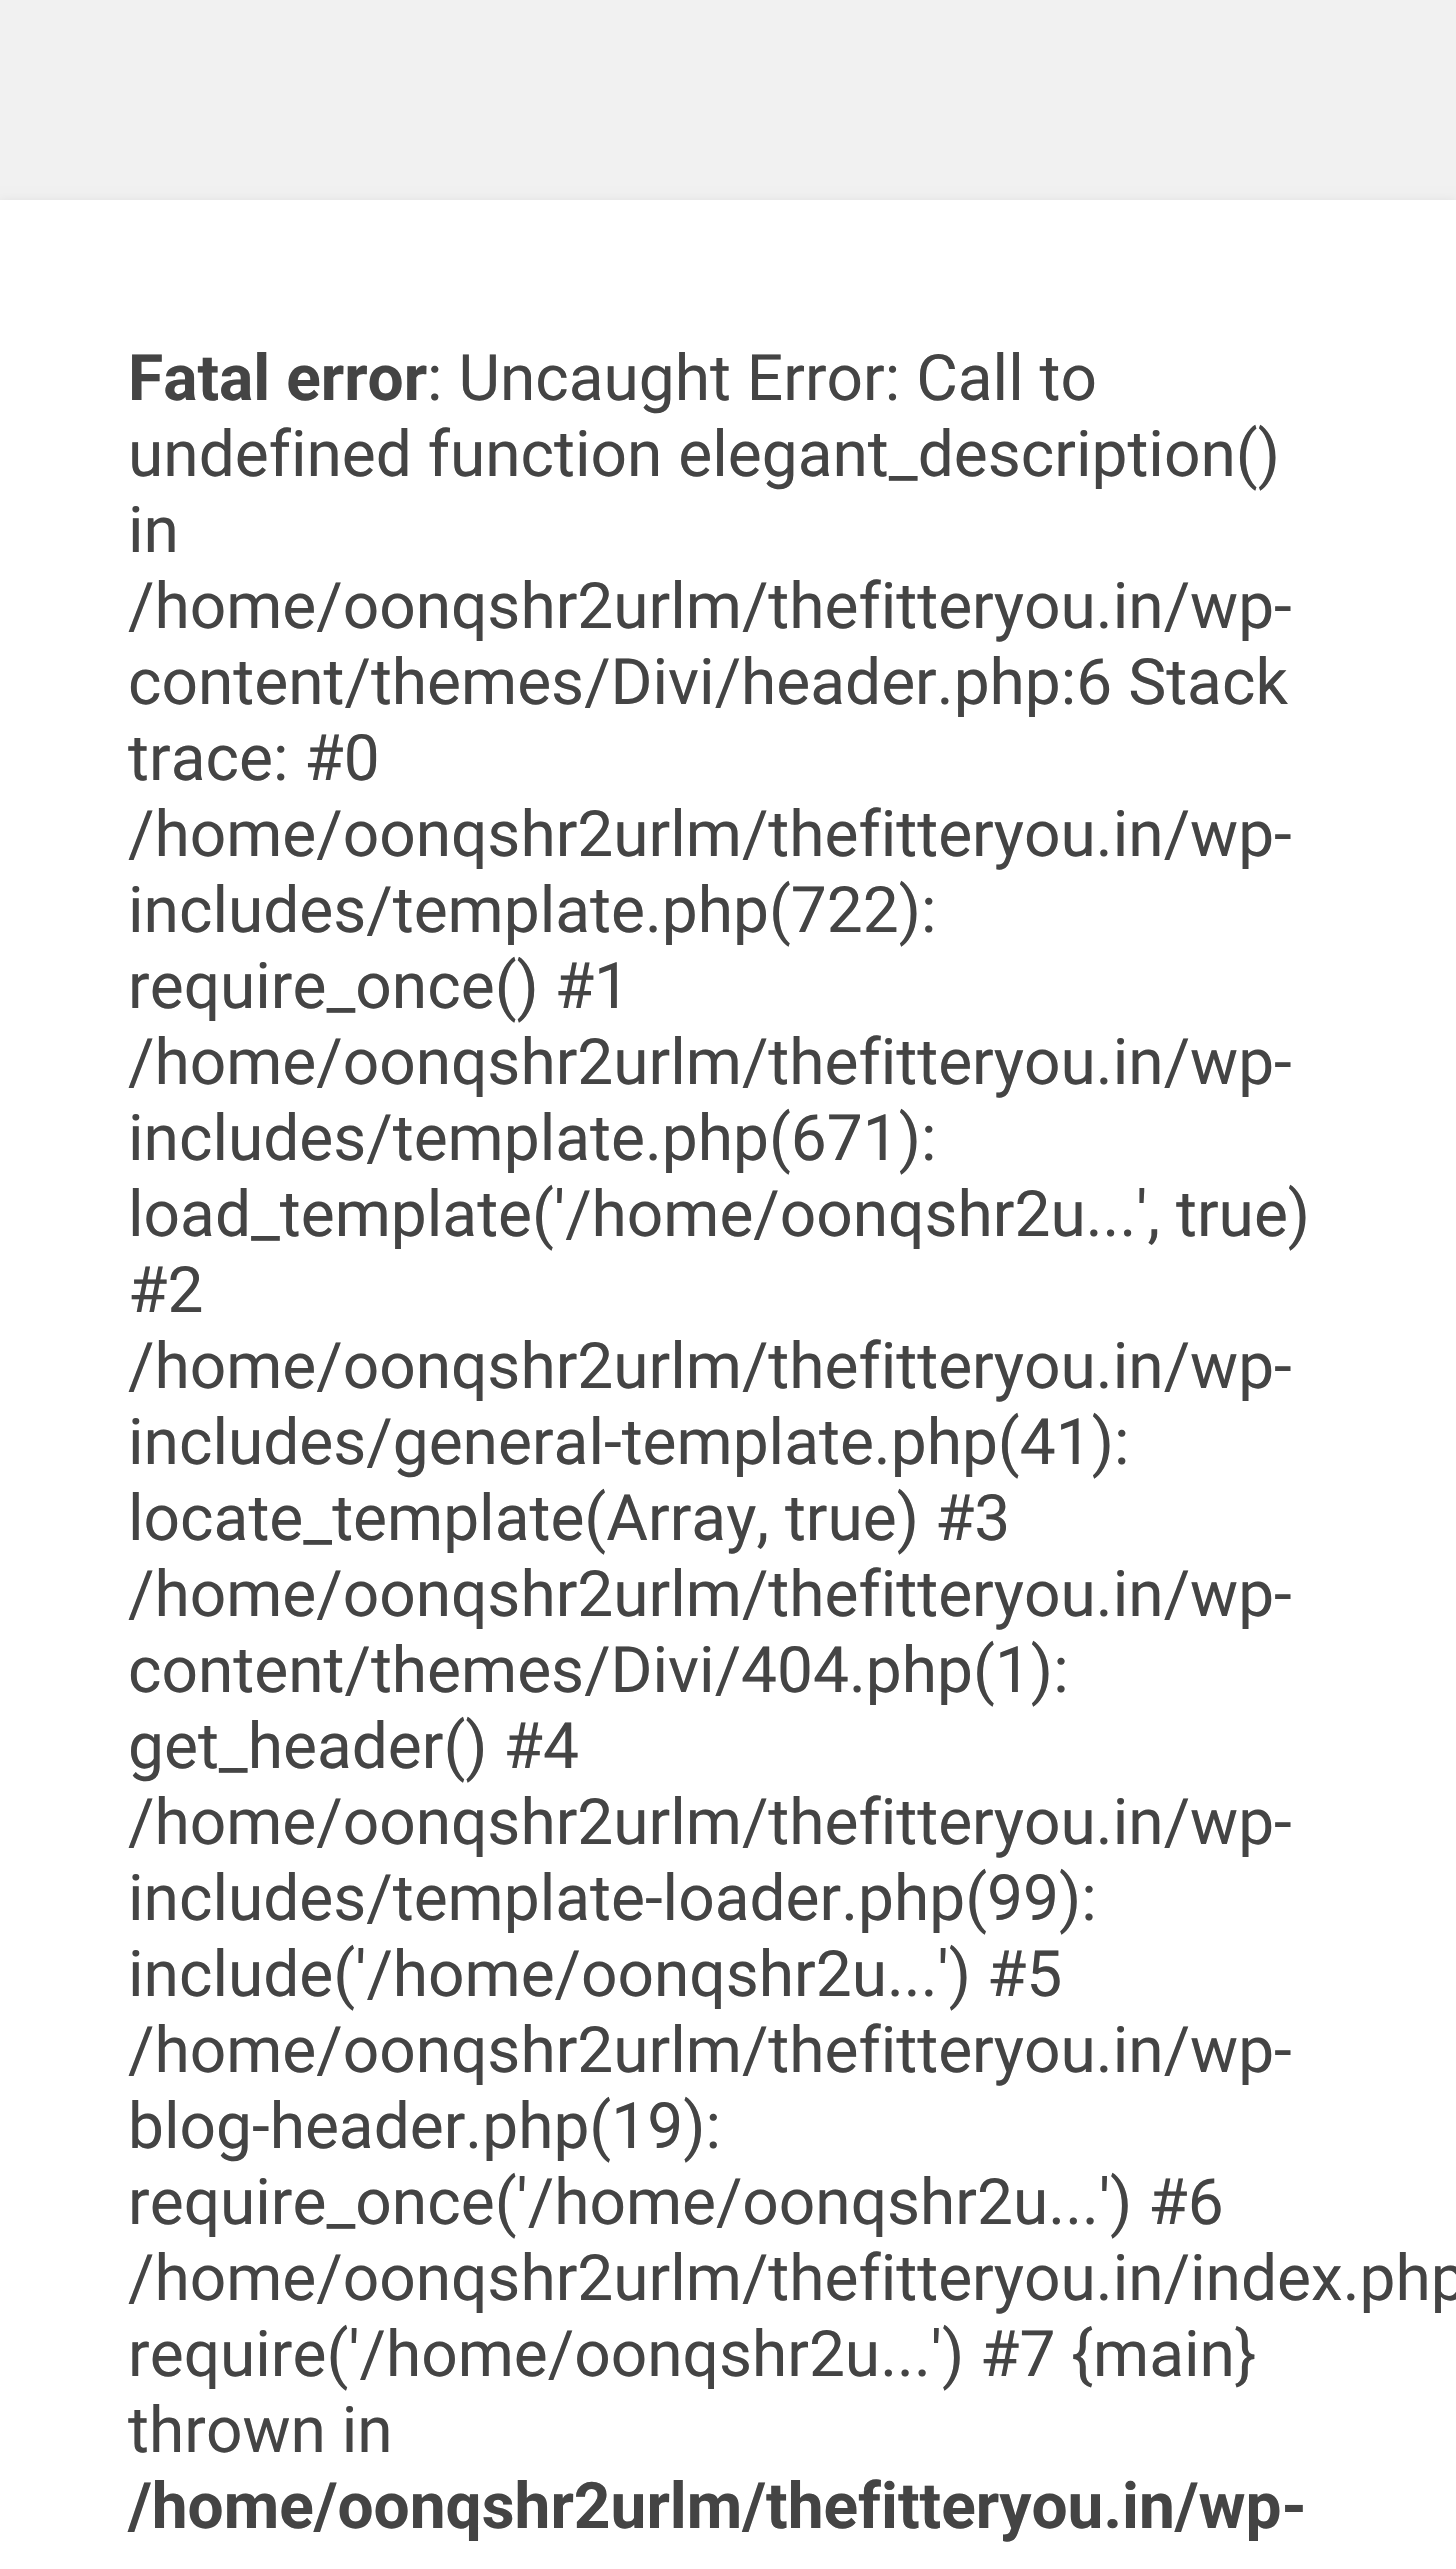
#include "include/core/SkBlurTypes.h"
#include "include/core/SkCanvas.h"
#include "include/core/SkData.h"
#include "include/core/SkFont.h"
#include "include/core/SkFontMgr.h"
#include "include/core/SkImage.h"
#include "include/core/SkMaskFilter.h"
#include "include/core/SkPaint.h"
#include "include/core/SkPathBuilder.h"
#include "include/core/SkTextBlob.h"
#include "include/effects/SkDashPathEffect.h"
#include "include/effects/SkGradientShader.h"
#include "include/utils/SkParsePath.h"

extern sk_sp<SkFontMgr> fontMgr;

static SkFont font(const char* family, int weight, float size, bool italic = false) {
    SkFontStyle style(weight, SkFontStyle::kNormal_Width,
        italic ? SkFontStyle::kItalic_Slant : SkFontStyle::kUpright_Slant);
    SkFont result(fontMgr->matchFamilyStyle(family, style), size);
    result.setSubpixel(true);
    return result;
}

static void drawLabel(SkCanvas* canvas, const char* s, float x, float y, const SkFont& font, SkColor color) {
    SkPaint ink(SkColor4f::FromColor(color));
    ink.setAntiAlias(true);
    canvas->drawString(s, x, y, font, ink);
}

static void fillRect(SkCanvas* canvas, float x, float y, float w, float h, SkColor color) {
    SkPaint ink(SkColor4f::FromColor(color));
    ink.setAntiAlias(true);
    canvas->drawRect(SkRect::MakeXYWH(x, y, w, h), ink);
}

void draw(SkCanvas* canvas) {
    SkPaint paint;
    paint.setAntiAlias(true);
    canvas->clear(0xFFF1F1F1);
    paint.setColor(0x21000000);
    paint.setMaskFilter(SkMaskFilter::MakeBlur(kNormal_SkBlurStyle, 6));
    canvas->drawRect(SkRect::MakeXYWH(0, 204, 1456, 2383), paint);
    paint.setMaskFilter(nullptr);
    fillRect(canvas, 0, 200, 1456, 2369, 0xFFFFFFFF);
    SkFont font1 = font("Roboto", 700, 64);
    drawLabel(canvas, "Fatal error", 128, 400, font1, 0xFF444444);
    SkFont font2 = font("Roboto", 400, 64);
    drawLabel(canvas, ": Uncaught Error: Call to", 427, 400, font2, 0xFF444444);
    drawLabel(canvas, "undefined function elegant_description()", 128, 476, font2, 0xFF444444);
    drawLabel(canvas, "in", 128, 552, font2, 0xFF444444);
    drawLabel(canvas, "/home/oonqshr2urlm/thefitteryou.in/wp-", 128, 628, font2, 0xFF444444);
    drawLabel(canvas, "content/themes/Divi/header.php:6 Stack", 128, 704, font2, 0xFF444444);
    drawLabel(canvas, "trace: #0", 128, 780, font2, 0xFF444444);
    drawLabel(canvas, "/home/oonqshr2urlm/thefitteryou.in/wp-", 128, 856, font2, 0xFF444444);
    drawLabel(canvas, "includes/template.php(722):", 128, 932, font2, 0xFF444444);
    drawLabel(canvas, "require_once() #1", 128, 1008, font2, 0xFF444444);
    drawLabel(canvas, "/home/oonqshr2urlm/thefitteryou.in/wp-", 128, 1084, font2, 0xFF444444);
    drawLabel(canvas, "includes/template.php(671):", 128, 1160, font2, 0xFF444444);
    drawLabel(canvas, "load_template('/home/oonqshr2u...', true)", 128, 1236, font2, 0xFF444444);
    drawLabel(canvas, "#2", 128, 1312, font2, 0xFF444444);
    drawLabel(canvas, "/home/oonqshr2urlm/thefitteryou.in/wp-", 128, 1388, font2, 0xFF444444);
    drawLabel(canvas, "includes/general-template.php(41):", 128, 1464, font2, 0xFF444444);
    drawLabel(canvas, "locate_template(Array, true) #3", 128, 1540, font2, 0xFF444444);
    drawLabel(canvas, "/home/oonqshr2urlm/thefitteryou.in/wp-", 128, 1616, font2, 0xFF444444);
    drawLabel(canvas, "content/themes/Divi/404.php(1):", 128, 1692, font2, 0xFF444444);
    drawLabel(canvas, "get_header() #4", 128, 1768, font2, 0xFF444444);
    drawLabel(canvas, "/home/oonqshr2urlm/thefitteryou.in/wp-", 128, 1844, font2, 0xFF444444);
    drawLabel(canvas, "includes/template-loader.php(99):", 128, 1920, font2, 0xFF444444);
    drawLabel(canvas, "include('/home/oonqshr2u...') #5", 128, 1996, font2, 0xFF444444);
    drawLabel(canvas, "/home/oonqshr2urlm/thefitteryou.in/wp-", 128, 2072, font2, 0xFF444444);
    drawLabel(canvas, "blog-header.php(19):", 128, 2148, font2, 0xFF444444);
    drawLabel(canvas, "require_once('/home/oonqshr2u...') #6", 128, 2224, font2, 0xFF444444);
    drawLabel(canvas, "/home/oonqshr2urlm/thefitteryou.in/index.php", 128, 2300, font2, 0xFF444444);
    drawLabel(canvas, "require('/home/oonqshr2u...') #7 {main}", 128, 2376, font2, 0xFF444444);
    drawLabel(canvas, "thrown in", 128, 2452, font2, 0xFF444444);
    drawLabel(canvas, "/home/oonqshr2urlm/thefitteryou.in/wp-", 128, 2528, font1, 0xFF444444);
}
